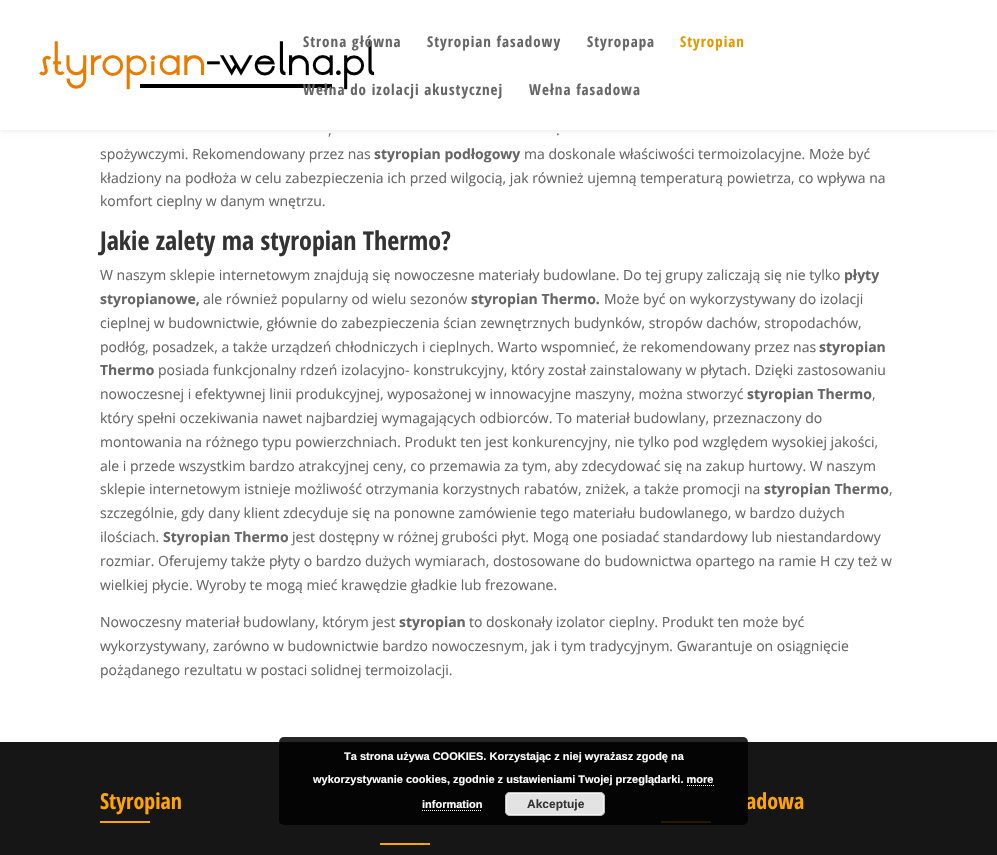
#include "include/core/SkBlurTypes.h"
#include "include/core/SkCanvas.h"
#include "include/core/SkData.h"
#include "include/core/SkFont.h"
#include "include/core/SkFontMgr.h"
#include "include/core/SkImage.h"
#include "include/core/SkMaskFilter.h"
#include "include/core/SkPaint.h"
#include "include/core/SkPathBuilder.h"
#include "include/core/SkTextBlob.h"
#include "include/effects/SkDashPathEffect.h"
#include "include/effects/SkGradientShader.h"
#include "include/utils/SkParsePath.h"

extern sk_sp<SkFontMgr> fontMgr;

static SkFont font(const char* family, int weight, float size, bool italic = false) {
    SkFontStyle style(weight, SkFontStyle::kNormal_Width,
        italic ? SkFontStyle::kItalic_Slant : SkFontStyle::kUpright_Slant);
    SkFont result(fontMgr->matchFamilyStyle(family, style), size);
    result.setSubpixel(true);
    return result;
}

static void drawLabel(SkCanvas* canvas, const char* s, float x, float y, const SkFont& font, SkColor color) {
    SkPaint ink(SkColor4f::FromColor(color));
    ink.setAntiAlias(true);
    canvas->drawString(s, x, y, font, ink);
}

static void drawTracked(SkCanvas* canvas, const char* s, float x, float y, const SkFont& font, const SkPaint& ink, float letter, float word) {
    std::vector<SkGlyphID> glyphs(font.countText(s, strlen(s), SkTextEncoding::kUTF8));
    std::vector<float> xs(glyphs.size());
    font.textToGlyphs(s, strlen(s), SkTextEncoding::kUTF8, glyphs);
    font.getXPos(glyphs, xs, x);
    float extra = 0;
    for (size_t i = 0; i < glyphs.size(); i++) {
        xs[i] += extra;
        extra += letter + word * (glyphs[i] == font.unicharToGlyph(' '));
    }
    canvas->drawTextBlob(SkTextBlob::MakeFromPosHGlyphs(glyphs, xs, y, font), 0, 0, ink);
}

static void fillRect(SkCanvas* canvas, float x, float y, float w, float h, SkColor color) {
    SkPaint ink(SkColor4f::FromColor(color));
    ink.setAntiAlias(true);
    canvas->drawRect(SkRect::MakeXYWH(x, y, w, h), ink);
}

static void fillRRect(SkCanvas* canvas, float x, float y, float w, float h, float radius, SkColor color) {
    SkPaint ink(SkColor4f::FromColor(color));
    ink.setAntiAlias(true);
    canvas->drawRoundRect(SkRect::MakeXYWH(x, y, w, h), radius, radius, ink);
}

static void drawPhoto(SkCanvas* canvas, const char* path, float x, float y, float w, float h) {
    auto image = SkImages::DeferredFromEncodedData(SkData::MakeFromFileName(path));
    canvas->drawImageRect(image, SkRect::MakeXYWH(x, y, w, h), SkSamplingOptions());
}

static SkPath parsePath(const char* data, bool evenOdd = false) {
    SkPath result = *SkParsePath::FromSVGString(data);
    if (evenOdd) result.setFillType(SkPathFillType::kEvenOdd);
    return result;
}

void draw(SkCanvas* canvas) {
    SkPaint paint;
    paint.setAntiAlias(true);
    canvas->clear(0xFFFFFFFF);
    paint.setColor(0x1A000000);
    paint.setMaskFilter(SkMaskFilter::MakeBlur(kNormal_SkBlurStyle, 3.5f));
    canvas->drawRect(SkRect::MakeXYWH(0, 0, 997, 130), paint);
    paint.setMaskFilter(nullptr);
    fillRect(canvas, 0, 0, 997, 130, 0xFFFFFFFF);
    drawPhoto(canvas, "assets/img1.png", 39, 41, 336, 49);
    SkFont font1 = font("Open Sans Condensed", 700, 15);
    paint.setColor(0xFF666666);
    drawTracked(canvas, "Strona główna", 303, 47, font1, paint, 1, 0);
    drawTracked(canvas, "Styropian fasadowy", 427, 47, font1, paint, 1, 0);
    drawTracked(canvas, "Styropapa", 587, 47, font1, paint, 1, 0);
    paint.setColor(0xFFE09900);
    drawTracked(canvas, "Styropian", 680, 47, font1, paint, 1, 0);
    paint.setColor(0xFF666666);
    drawTracked(canvas, "Wełna do izolacji akustycznej", 303, 95, font1, paint, 1, 0);
    drawTracked(canvas, "Wełna fasadowa", 529, 95, font1, paint, 1, 0);
    SkFont font2 = font("Open Sans", 400, 14);
    drawLabel(canvas, ",", 328, 135, font2, 0xFF666666);
    drawLabel(canvas, ".", 556, 135, font2, 0xFF666666);
    drawLabel(canvas, "spożywczymi. Rekomendowany przez nas", 100, 159, font2, 0xFF666666);
    SkFont font3 = font("Open Sans", 700, 14);
    drawLabel(canvas, "styropian podłogowy", 374, 159, font3, 0xFF666666);
    drawLabel(canvas, "ma doskonale właściwości termoizolacyjne. Może być", 524, 159, font2, 0xFF666666);
    drawLabel(canvas, "kładziony na podłoża w celu zabezpieczenia ich przed wilgocią, jak również ujemną temperaturą powietrza, co wpływa na", 100, 183, font2, 0xFF666666);
    drawLabel(canvas, "komfort cieplny w danym wnętrzu.", 100, 206, font2, 0xFF666666);
    SkFont font4 = font("Open Sans Condensed", 700, 26);
    drawLabel(canvas, "Jakie zalety ma styropian Thermo?", 100, 250, font4, 0xFF333333);
    drawLabel(canvas, "W naszym sklepie internetowym znajdują się nowoczesne materiały budowlane. Do tej grupy zaliczają się nie tylko", 100, 280, font2, 0xFF666666);
    drawLabel(canvas, "płyty", 844, 280, font3, 0xFF666666);
    drawLabel(canvas, "styropianowe,", 100, 304, font3, 0xFF666666);
    drawLabel(canvas, "ale również popularny od wielu sezonów", 203, 304, font2, 0xFF666666);
    drawLabel(canvas, "styropian Thermo.", 471, 304, font3, 0xFF666666);
    drawLabel(canvas, "Może być on wykorzystywany do izolacji", 604, 304, font2, 0xFF666666);
    drawLabel(canvas, "cieplnej w budownictwie, głównie do zabezpieczenia ścian zewnętrznych budynków, stropów dachów, stropodachów,", 100, 328, font2, 0xFF666666);
    drawLabel(canvas, "podłóg, posadzek, a także urządzeń chłodniczych i cieplnych. Warto wspomnieć, że rekomendowany przez nas", 100, 352, font2, 0xFF666666);
    drawLabel(canvas, "styropian", 819, 352, font3, 0xFF666666);
    drawLabel(canvas, "Thermo", 100, 375, font3, 0xFF666666);
    drawLabel(canvas, "posiada funkcjonalny rdzeń izolacyjno- konstrukcyjny, który został zainstalowany w płytach. Dzięki zastosowaniu", 158, 375, font2, 0xFF666666);
    drawLabel(canvas, "nowoczesnej i efektywnej linii produkcyjnej, wyposażonej w innowacyjne maszyny, można stworzyć", 100, 399, font2, 0xFF666666);
    drawLabel(canvas, "styropian Thermo", 747, 399, font3, 0xFF666666);
    drawLabel(canvas, ",", 872, 399, font2, 0xFF666666);
    drawLabel(canvas, "który spełni oczekiwania nawet najbardziej wymagających odbiorców. To materiał budowlany, przeznaczony do", 100, 423, font2, 0xFF666666);
    drawLabel(canvas, "montowania na różnego typu powierzchniach. Produkt ten jest konkurencyjny, nie tylko pod względem wysokiej jakości,", 100, 447, font2, 0xFF666666);
    drawLabel(canvas, "ale i przede wszystkim bardzo atrakcyjnej ceny, co przemawia za tym, aby zdecydować się na zakup hurtowy. W naszym", 100, 471, font2, 0xFF666666);
    drawLabel(canvas, "sklepie internetowym istnieje możliwość otrzymania korzystnych rabatów, zniżek, a także promocji na", 100, 494, font2, 0xFF666666);
    drawLabel(canvas, "styropian Thermo", 764, 494, font3, 0xFF666666);
    drawLabel(canvas, ",", 889, 494, font2, 0xFF666666);
    drawLabel(canvas, "szczególnie, gdy dany klient zdecyduje się na ponowne zamówienie tego materiału budowlanego, w bardzo dużych", 100, 518, font2, 0xFF666666);
    drawLabel(canvas, "ilościach.", 100, 542, font2, 0xFF666666);
    drawLabel(canvas, "Styropian Thermo", 163, 542, font3, 0xFF666666);
    drawLabel(canvas, "jest dostępny w różnej grubości płyt. Mogą one posiadać standardowy lub niestandardowy", 292, 542, font2, 0xFF666666);
    drawLabel(canvas, "rozmiar. Oferujemy także płyty o bardzo dużych wymiarach, dostosowane do budownictwa opartego na ramie H czy też w", 100, 566, font2, 0xFF666666);
    drawLabel(canvas, "wielkiej płycie. Wyroby te mogą mieć krawędzie gładkie lub frezowane.", 100, 590, font2, 0xFF666666);
    drawLabel(canvas, "Nowoczesny materiał budowlany, którym jest", 100, 627, font2, 0xFF666666);
    drawLabel(canvas, "styropian", 399, 627, font3, 0xFF666666);
    drawLabel(canvas, "to doskonały izolator cieplny. Produkt ten może być", 469, 627, font2, 0xFF666666);
    drawLabel(canvas, "wykorzystywany, zarówno w budownictwie bardzo nowoczesnym, jak i tym tradycyjnym. Gwarantuje on osiągnięcie", 100, 651, font2, 0xFF666666);
    drawLabel(canvas, "pożądanego rezultatu w postaci solidnej termoizolacji.", 100, 675, font2, 0xFF666666);
    fillRect(canvas, 0, 742, 997, 113, 0xFF161616);
    SkFont font5 = font("Open Sans Condensed", 700, 22);
    drawLabel(canvas, "Styropian", 100, 809, font5, 0xFFFFA500);
    fillRect(canvas, 100, 821, 50, 2, 0xFFFFA500);
    drawLabel(canvas, "adowa", 746, 809, font5, 0xFFFFA500);
    fillRect(canvas, 661, 821, 50, 2, 0xFFFFA500);
    fillRect(canvas, 380, 843, 50, 2, 0xFFFFA500);
    fillRRect(canvas, 279, 737, 469, 88, 5, 0xD9000000);
    SkFont font6 = font("Liberation Sans", 700, 11);
    drawLabel(canvas, "Ta strona używa COOKIES. Korzystając z niej wyrażasz zgodę na", 344, 760, font6, 0xFFFFFFFF);
    drawLabel(canvas, "wykorzystywanie cookies, zgodnie z ustawieniami Twojej przeglądarki. more", 313, 783, font6, 0xFFFFFFFF);
    drawLabel(canvas, "information", 422, 808, font6, 0xFFFFFFFF);
    paint.setStroke(true);
    paint.setStrokeWidth(1);
    paint.setColor(0xFFFFFFFF);
    paint.setPathEffect(SkDashPathEffect::Make({{1, 1}}, 0));
    canvas->drawPath(parsePath("M687 785.5H714"), paint);
    paint.setPathEffect(nullptr);
    paint.setPathEffect(SkDashPathEffect::Make({{1, 1}}, 0));
    canvas->drawPath(parsePath("M422 810.5H482"), paint);
    paint.setPathEffect(nullptr);
    fillRRect(canvas, 505, 792, 100, 24, 5, 0xFFE3E3E3);
    paint.setColor(0xFFF6F6F6);
    canvas->drawRoundRect(SkRect::MakeXYWH(506.5f, 793.5f, 97, 21), 3.5f, 3.5f, paint);
    paint.setColor(0xFFBBBBBB);
    canvas->drawRoundRect(SkRect::MakeXYWH(505.5f, 792.5f, 99, 23), 4.5f, 4.5f, paint);
    SkFont font7 = font("Liberation Sans", 700, 12);
    drawLabel(canvas, "Akceptuje", 527, 808, font7, 0xFF333333);
}
